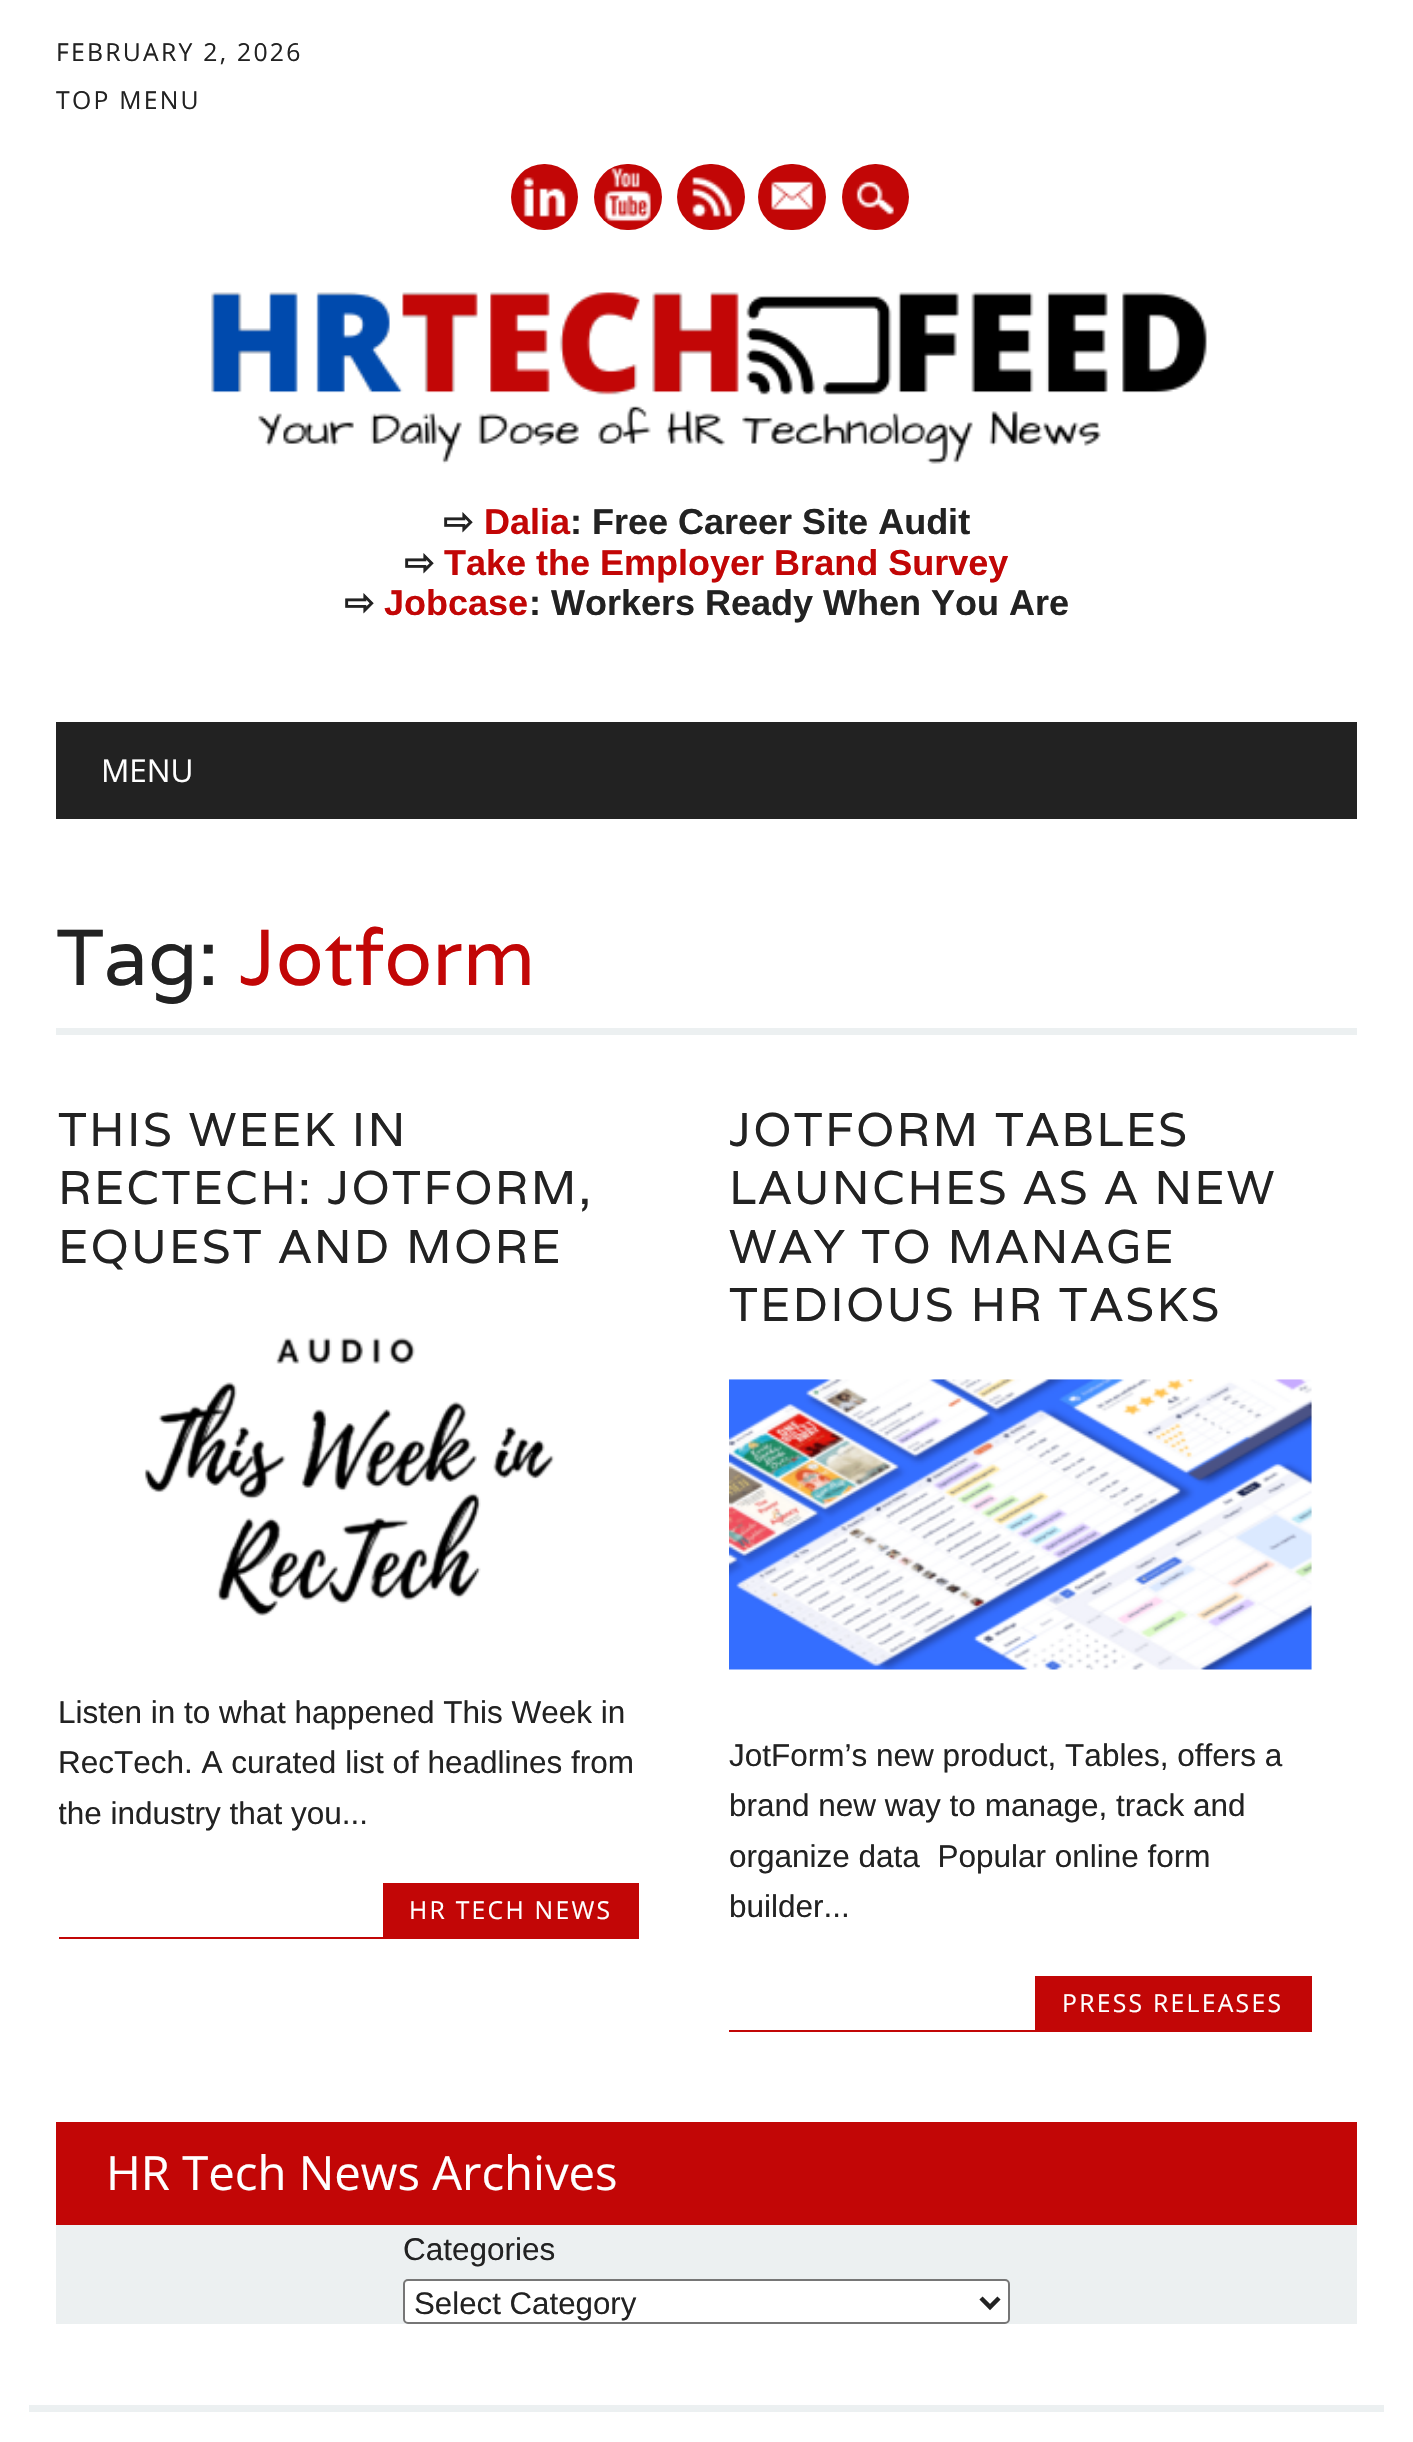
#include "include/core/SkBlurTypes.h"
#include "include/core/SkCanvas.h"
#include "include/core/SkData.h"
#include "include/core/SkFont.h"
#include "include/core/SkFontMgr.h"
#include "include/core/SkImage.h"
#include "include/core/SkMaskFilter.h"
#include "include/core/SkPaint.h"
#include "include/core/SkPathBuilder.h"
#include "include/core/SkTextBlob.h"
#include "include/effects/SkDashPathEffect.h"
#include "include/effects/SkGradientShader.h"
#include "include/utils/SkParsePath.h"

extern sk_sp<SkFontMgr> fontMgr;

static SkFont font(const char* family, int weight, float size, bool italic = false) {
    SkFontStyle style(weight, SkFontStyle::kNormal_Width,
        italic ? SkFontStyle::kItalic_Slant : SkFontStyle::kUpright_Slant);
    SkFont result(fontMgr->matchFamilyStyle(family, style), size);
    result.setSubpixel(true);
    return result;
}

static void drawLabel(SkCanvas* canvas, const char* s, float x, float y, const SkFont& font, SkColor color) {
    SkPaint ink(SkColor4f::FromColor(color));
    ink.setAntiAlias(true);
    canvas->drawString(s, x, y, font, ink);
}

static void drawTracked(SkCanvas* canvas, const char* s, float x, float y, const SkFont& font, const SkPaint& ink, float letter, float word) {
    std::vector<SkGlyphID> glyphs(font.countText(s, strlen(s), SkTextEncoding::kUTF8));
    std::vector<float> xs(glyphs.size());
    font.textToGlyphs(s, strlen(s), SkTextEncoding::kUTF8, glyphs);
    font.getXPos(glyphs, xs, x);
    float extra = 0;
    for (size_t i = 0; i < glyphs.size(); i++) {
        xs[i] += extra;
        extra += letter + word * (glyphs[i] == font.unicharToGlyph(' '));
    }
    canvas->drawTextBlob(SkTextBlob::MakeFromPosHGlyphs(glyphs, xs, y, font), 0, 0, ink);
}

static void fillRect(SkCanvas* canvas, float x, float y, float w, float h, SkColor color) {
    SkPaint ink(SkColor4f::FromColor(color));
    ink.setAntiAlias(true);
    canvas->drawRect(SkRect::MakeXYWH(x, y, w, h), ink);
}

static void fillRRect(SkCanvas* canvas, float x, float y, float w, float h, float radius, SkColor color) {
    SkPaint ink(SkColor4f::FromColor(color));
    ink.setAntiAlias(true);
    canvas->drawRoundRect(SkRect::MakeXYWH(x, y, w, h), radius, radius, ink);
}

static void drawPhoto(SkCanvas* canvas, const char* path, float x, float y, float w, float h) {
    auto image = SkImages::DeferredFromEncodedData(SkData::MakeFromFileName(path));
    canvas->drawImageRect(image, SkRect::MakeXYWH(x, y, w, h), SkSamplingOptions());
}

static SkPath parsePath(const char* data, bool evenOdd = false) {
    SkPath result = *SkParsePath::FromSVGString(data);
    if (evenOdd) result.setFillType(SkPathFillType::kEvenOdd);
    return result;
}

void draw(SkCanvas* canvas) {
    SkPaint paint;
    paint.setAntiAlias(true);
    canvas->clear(0xFFFFFFFF);
    SkFont font1 = font("Open Sans", 400, 24.75f);
    paint.setColor(0xFF222222);
    drawTracked(canvas, "FEBRUARY 2, 2026", 56, 61, font1, paint, 2.25f, 0);
    drawTracked(canvas, "TOP MENU", 56, 109, font1, paint, 2.25f, 0);
    fillRRect(canvas, 511, 164, 67, 66, 33, 0xFFC20606);
    drawPhoto(canvas, "assets/img1.png", 523, 177, 43, 40);
    fillRRect(canvas, 594, 164, 68, 66, 33, 0xFFC20606);
    drawPhoto(canvas, "assets/img2.png", 604, 168, 47, 54);
    fillRRect(canvas, 677, 164, 68, 66, 33, 0xFFC20606);
    drawPhoto(canvas, "assets/img3.png", 692, 177, 40, 40);
    fillRRect(canvas, 758, 164, 68, 66, 33, 0xFFC20606);
    drawPhoto(canvas, "assets/img4.png", 771, 181, 42, 29);
    fillRRect(canvas, 842, 164, 67, 66, 33, 0xFFC20606);
    drawPhoto(canvas, "assets/img5.png", 856, 181, 38, 34);
    drawPhoto(canvas, "assets/img6.png", 211, 292, 996, 172);
    SkFont font2 = font("DejaVu Sans", 700, 36);
    drawLabel(canvas, "⇨", 443, 534, font2, 0xFF222222);
    SkFont font3 = font("Liberation Sans", 700, 36);
    drawLabel(canvas, "Dalia", 484, 534, font3, 0xFFC20606);
    drawLabel(canvas, ": Free Career Site Audit", 570, 534, font3, 0xFF222222);
    drawLabel(canvas, "⇨", 404, 575, font2, 0xFF222222);
    drawLabel(canvas, "Take the Employer Brand Survey", 444, 575, font3, 0xFFC20606);
    drawLabel(canvas, "⇨", 344, 615, font2, 0xFF222222);
    drawLabel(canvas, "Jobcase", 384, 615, font3, 0xFFC20606);
    drawLabel(canvas, ": Workers Ready When You Are", 529, 615, font3, 0xFF222222);
    fillRect(canvas, 56, 722, 1301, 97, 0xFF222222);
    SkFont font4 = font("Open Sans", 400, 31.5f);
    drawLabel(canvas, "MENU", 101, 782, font4, 0xFFFFFFFF);
    fillRect(canvas, 56, 1028, 1301, 7, 0xFFECF0F1);
    SkFont font5 = font("Varela", 400, 79);
    drawLabel(canvas, "Tag:", 56, 985, font5, 0xFF222222);
    drawLabel(canvas, "Jotform", 239, 985, font5, 0xFFC20606);
    SkFont font6 = font("Varela", 400, 47.25f);
    drawTracked(canvas, "THIS WEEK IN", 58, 1146, font6, paint, 2.25f, 0);
    drawTracked(canvas, "RECTECH: JOTFORM,", 58, 1204, font6, paint, 2.25f, 0);
    drawTracked(canvas, "EQUEST AND MORE", 58, 1263, font6, paint, 2.25f, 0);
    drawPhoto(canvas, "assets/img7.png", 144, 1337, 411, 279);
    SkFont font7 = font("Liberation Sans", 400, 31.5f);
    drawLabel(canvas, "Listen in to what happened This Week in", 58, 1723, font7, 0xFF222222);
    drawLabel(canvas, "RecTech. A curated list of headlines from", 58, 1773, font7, 0xFF222222);
    canvas->save();
    canvas->clipRect(SkRect::MakeXYWH(59, 1688, 580, 150));
    drawLabel(canvas, "the industry that you...", 58, 1824, font7, 0xFF222222);
    canvas->restore();
    fillRect(canvas, 383, 1883, 256, 54, 0xFFC20606);
    paint.setColor(0xFFFFFFFF);
    drawTracked(canvas, "HR TECH NEWS", 409, 1919, font1, paint, 2.25f, 0);
    fillRect(canvas, 59, 1937, 580, 2, 0xFFC20606);
    paint.setColor(0xFF222222);
    drawTracked(canvas, "JOTFORM TABLES", 729, 1146, font6, paint, 2.25f, 0);
    drawTracked(canvas, "LAUNCHES AS A NEW", 729, 1204, font6, paint, 2.25f, 0);
    drawTracked(canvas, "WAY TO MANAGE", 729, 1263, font6, paint, 2.25f, 0);
    drawTracked(canvas, "TEDIOUS HR TASKS", 729, 1321, font6, paint, 2.25f, 0);
    drawPhoto(canvas, "assets/img8.png", 729, 1379, 583, 291);
    drawLabel(canvas, "JotForm’s new product, Tables, offers a", 729, 1766, font7, 0xFF222222);
    drawLabel(canvas, "brand new way to manage, track and", 729, 1816, font7, 0xFF222222);
    drawLabel(canvas, "organize data  Popular online form", 729, 1867, font7, 0xFF222222);
    drawLabel(canvas, "builder...", 729, 1917, font7, 0xFF222222);
    fillRect(canvas, 1035, 1976, 277, 54, 0xFFC20606);
    paint.setColor(0xFFFFFFFF);
    drawTracked(canvas, "PRESS RELEASES", 1062, 2012, font1, paint, 2.25f, 0);
    fillRect(canvas, 729, 2030, 583, 2, 0xFFC20606);
    fillRect(canvas, 56, 2225, 1301, 99, 0xFFECF0F1);
    fillRect(canvas, 56, 2122, 1301, 103, 0xFFC20606);
    SkFont font8 = font("Open Sans", 400, 47.25f);
    drawLabel(canvas, "HR Tech News Archives", 106, 2190, font8, 0xFFFFFFFF);
    drawLabel(canvas, "Categories", 403, 2260, font7, 0xFF222222);
    canvas->drawRoundRect(SkRect::MakeXYWH(404, 2280, 605, 43), 4, 4, paint);
    paint.setStroke(true);
    paint.setStrokeWidth(2);
    paint.setColor(0xFF767676);
    canvas->drawRoundRect(SkRect::MakeXYWH(404, 2280, 605, 43), 4, 4, paint);
    paint.setStrokeWidth(4.5f);
    paint.setColor(0xFF222222);
    canvas->drawPath(parsePath("M981 2298L990 2307L999 2298"), paint);
    SkFont font9 = font("Liberation Sans", 400, 31.25f);
    drawLabel(canvas, "Select Category", 414, 2314, font9, 0xFF222222);
    fillRect(canvas, 29, 2405, 1355, 7, 0xFFECF0F1);
}
